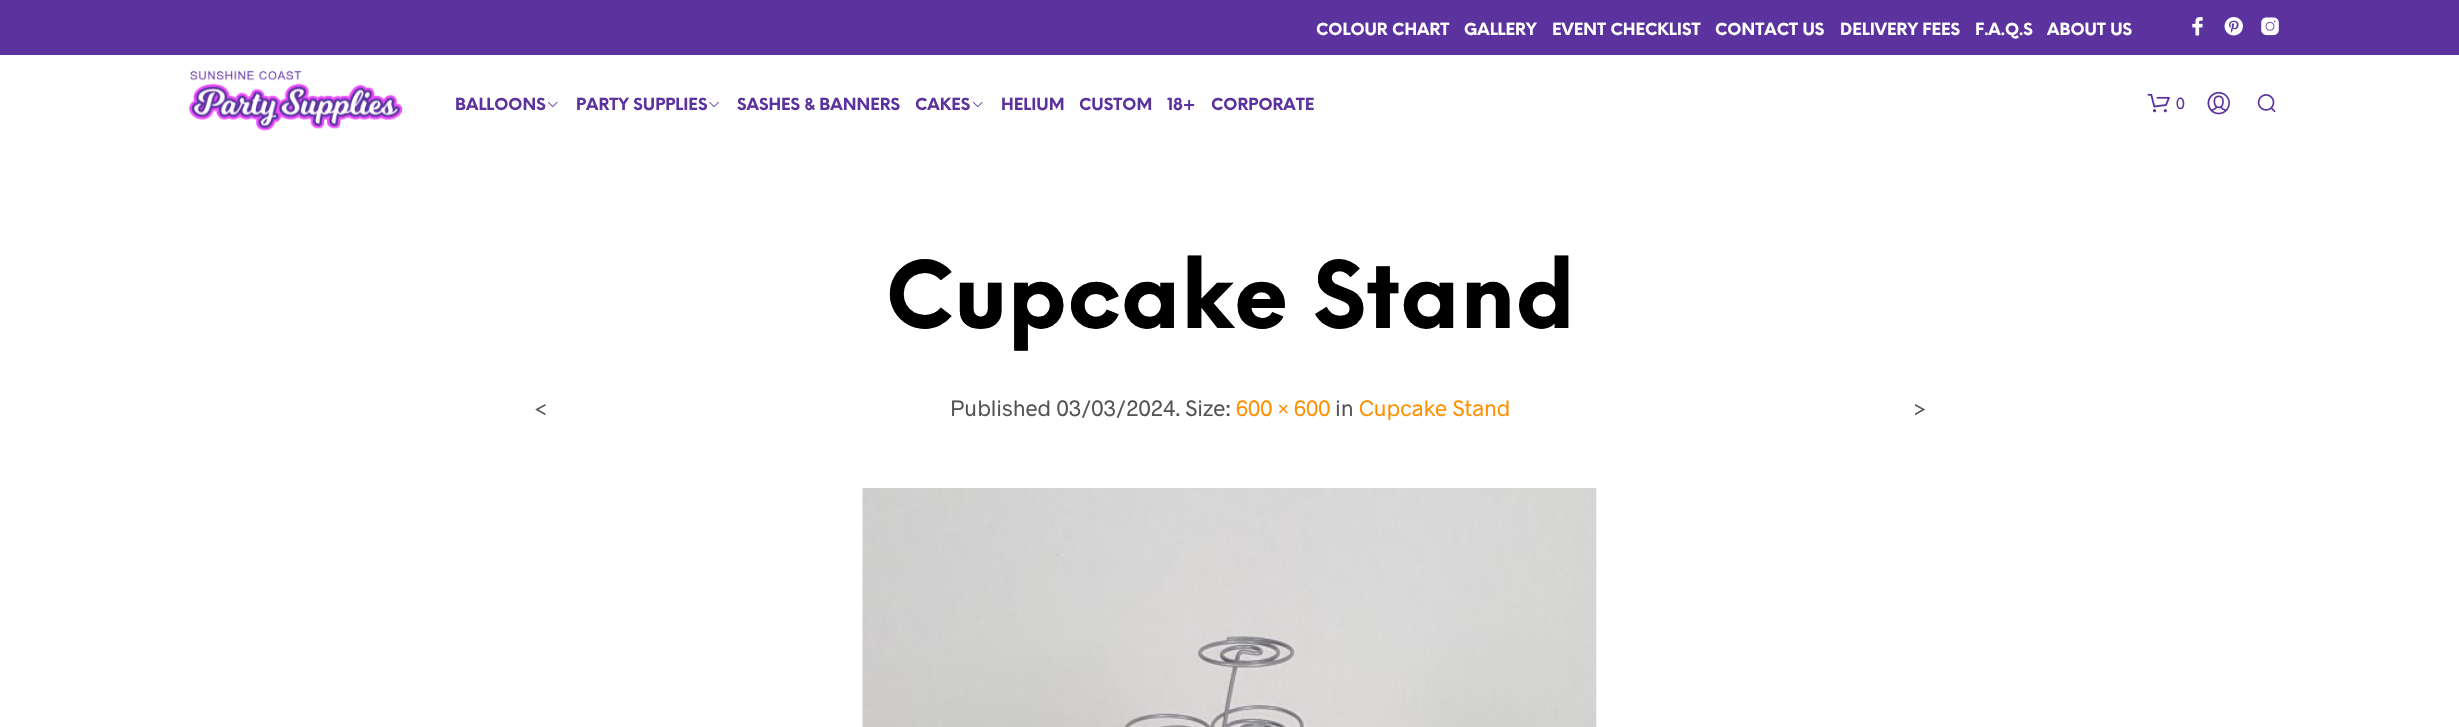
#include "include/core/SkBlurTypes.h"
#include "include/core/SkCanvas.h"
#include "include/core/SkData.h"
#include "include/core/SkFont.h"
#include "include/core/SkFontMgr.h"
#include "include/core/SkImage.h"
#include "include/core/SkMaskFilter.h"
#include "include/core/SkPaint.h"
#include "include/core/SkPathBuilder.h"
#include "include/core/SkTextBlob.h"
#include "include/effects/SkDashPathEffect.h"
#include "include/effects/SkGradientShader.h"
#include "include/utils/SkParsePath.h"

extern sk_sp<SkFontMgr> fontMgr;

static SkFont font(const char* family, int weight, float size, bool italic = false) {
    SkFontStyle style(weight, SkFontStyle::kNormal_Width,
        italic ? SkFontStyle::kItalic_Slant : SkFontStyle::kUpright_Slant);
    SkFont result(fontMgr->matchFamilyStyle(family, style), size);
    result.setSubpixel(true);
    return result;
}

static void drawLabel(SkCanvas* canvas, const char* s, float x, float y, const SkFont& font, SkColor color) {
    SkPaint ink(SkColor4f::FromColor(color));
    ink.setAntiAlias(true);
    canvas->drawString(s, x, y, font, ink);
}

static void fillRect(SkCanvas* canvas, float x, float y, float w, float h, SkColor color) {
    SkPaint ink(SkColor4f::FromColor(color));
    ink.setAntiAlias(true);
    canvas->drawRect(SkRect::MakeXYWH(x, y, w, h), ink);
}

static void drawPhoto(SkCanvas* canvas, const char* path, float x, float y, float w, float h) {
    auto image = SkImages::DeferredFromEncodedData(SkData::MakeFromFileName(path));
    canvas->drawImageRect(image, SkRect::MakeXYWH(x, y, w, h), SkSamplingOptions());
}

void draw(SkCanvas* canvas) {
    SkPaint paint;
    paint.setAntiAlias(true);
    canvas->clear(0xFFFFFFFF);
    fillRect(canvas, 0, 0, 2459, 55, 0xFF5C339E);
    SkFont font1 = font("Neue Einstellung", 700, 16.25f);
    drawLabel(canvas, "COLOUR CHART", 1316, 35, font1, 0xFFFFFFFF);
    drawLabel(canvas, "GALLERY", 1464, 35, font1, 0xFFFFFFFF);
    drawLabel(canvas, "EVENT CHECKLIST", 1552, 35, font1, 0xFFFFFFFF);
    drawLabel(canvas, "CONTACT US", 1715, 35, font1, 0xFFFFFFFF);
    drawLabel(canvas, "DELIVERY FEES", 1840, 35, font1, 0xFFFFFFFF);
    drawLabel(canvas, "F.A.Q.S", 1975, 35, font1, 0xFFFFFFFF);
    drawLabel(canvas, "ABOUT US", 2047, 35, font1, 0xFFFFFFFF);
    drawPhoto(canvas, "assets/img1.png", 2192, 17, 11, 19);
    drawPhoto(canvas, "assets/img2.png", 2224, 17, 19, 19);
    drawPhoto(canvas, "assets/img3.png", 2261, 17, 18, 19);
    drawPhoto(canvas, "assets/img4.png", 189, 70, 214, 62);
    drawLabel(canvas, "BALLOONS", 455, 110, font1, 0xFF5C339E);
    drawPhoto(canvas, "assets/img5.png", 548, 102, 10, 6);
    drawLabel(canvas, "PARTY SUPPLIES", 576, 110, font1, 0xFF5C339E);
    drawPhoto(canvas, "assets/img6.png", 709, 102, 10, 5);
    drawLabel(canvas, "SASHES & BANNERS", 737, 110, font1, 0xFF5C339E);
    drawLabel(canvas, "CAKES", 915, 110, font1, 0xFF5C339E);
    drawPhoto(canvas, "assets/img5.png", 973, 102, 10, 6);
    drawLabel(canvas, "HELIUM", 1001, 110, font1, 0xFF5C339E);
    drawLabel(canvas, "CUSTOM", 1079, 110, font1, 0xFF5C339E);
    drawLabel(canvas, "18+", 1167, 110, font1, 0xFF5C339E);
    drawLabel(canvas, "CORPORATE", 1211, 110, font1, 0xFF5C339E);
    drawPhoto(canvas, "assets/img7.png", 2147, 93, 23, 20);
    SkFont font2 = font("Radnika", 400, 16.25f);
    drawLabel(canvas, "0", 2176, 109, font2, 0xFF5C339E);
    drawPhoto(canvas, "assets/img8.png", 2207, 91, 23, 24);
    drawPhoto(canvas, "assets/img9.png", 2257, 94, 19, 19);
    SkFont font3 = font("Neue Einstellung", 700, 90.75f);
    drawLabel(canvas, "Cupcake Stand", 885, 328, font3, 0xFF000000);
    SkFont font4 = font("Radnika", 400, 22.5f);
    drawLabel(canvas, "Published 03/03/2024. Size:", 950, 416, font4, 0xFF545454);
    drawLabel(canvas, "600 × 600", 1236, 416, font4, 0xFFFF9000);
    drawLabel(canvas, "in", 1335, 416, font4, 0xFF545454);
    drawLabel(canvas, "Cupcake Stand", 1359, 416, font4, 0xFFFF9000);
    drawLabel(canvas, "<", 534, 417, font4, 0xFF545454);
    drawLabel(canvas, ">", 1913, 417, font4, 0xFF545454);
    drawPhoto(canvas, "assets/img10.png", 862, 488, 735, 239);
}
